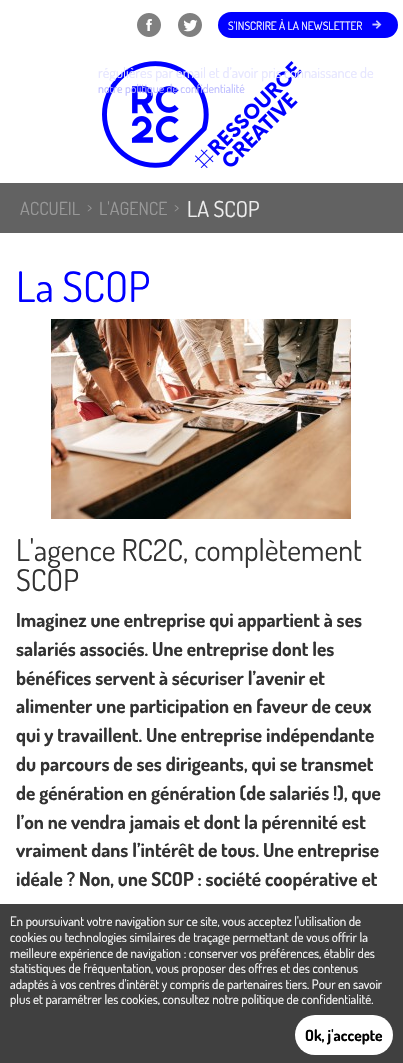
#include "include/core/SkBlurTypes.h"
#include "include/core/SkCanvas.h"
#include "include/core/SkData.h"
#include "include/core/SkFont.h"
#include "include/core/SkFontMgr.h"
#include "include/core/SkImage.h"
#include "include/core/SkMaskFilter.h"
#include "include/core/SkPaint.h"
#include "include/core/SkPathBuilder.h"
#include "include/core/SkTextBlob.h"
#include "include/effects/SkDashPathEffect.h"
#include "include/effects/SkGradientShader.h"
#include "include/utils/SkParsePath.h"

extern sk_sp<SkFontMgr> fontMgr;

static SkFont font(const char* family, int weight, float size, bool italic = false) {
    SkFontStyle style(weight, SkFontStyle::kNormal_Width,
        italic ? SkFontStyle::kItalic_Slant : SkFontStyle::kUpright_Slant);
    SkFont result(fontMgr->matchFamilyStyle(family, style), size);
    result.setSubpixel(true);
    return result;
}

static void drawLabel(SkCanvas* canvas, const char* s, float x, float y, const SkFont& font, SkColor color) {
    SkPaint ink(SkColor4f::FromColor(color));
    ink.setAntiAlias(true);
    canvas->drawString(s, x, y, font, ink);
}

static void fillRect(SkCanvas* canvas, float x, float y, float w, float h, SkColor color) {
    SkPaint ink(SkColor4f::FromColor(color));
    ink.setAntiAlias(true);
    canvas->drawRect(SkRect::MakeXYWH(x, y, w, h), ink);
}

static void fillRRect(SkCanvas* canvas, float x, float y, float w, float h, float radius, SkColor color) {
    SkPaint ink(SkColor4f::FromColor(color));
    ink.setAntiAlias(true);
    canvas->drawRoundRect(SkRect::MakeXYWH(x, y, w, h), radius, radius, ink);
}

static void drawPhoto(SkCanvas* canvas, const char* path, float x, float y, float w, float h) {
    auto image = SkImages::DeferredFromEncodedData(SkData::MakeFromFileName(path));
    canvas->drawImageRect(image, SkRect::MakeXYWH(x, y, w, h), SkSamplingOptions());
}

void draw(SkCanvas* canvas) {
    SkPaint paint;
    paint.setAntiAlias(true);
    canvas->clear(0xFFFFFFFF);
    drawPhoto(canvas, "assets/img1.png", 137, 13, 24, 24);
    drawPhoto(canvas, "assets/img2.png", 178, 13, 24, 24);
    fillRRect(canvas, 218, 12, 180, 26, 13, 0xFF0000FF);
    SkFont font1 = font("Dosis", 400, 11.5f);
    drawLabel(canvas, "S'INSCRIRE À LA NEWSLETTER", 228, 30, font1, 0xFFFFFFFF);
    drawPhoto(canvas, "assets/img3.png", 372, 20, 10, 9);
    drawPhoto(canvas, "assets/img4.png", 102, 61, 200, 107);
    SkFont font2 = font("Dosis", 400, 14.4f);
    drawLabel(canvas, "régulières par email et d’avoir pris connaissance de", 98, 78, font2, 0xFFE5E5FF);
    SkFont font3 = font("Dosis", 400, 12);
    drawLabel(canvas, "notre politique de confidentialité", 98, 93, font3, 0xFFB8B8FF);
    fillRect(canvas, 0, 183, 403, 50, 0xFF626262);
    drawPhoto(canvas, "assets/img5.png", 87, 205, 5, 7);
    SkFont font4 = font("Dosis", 400, 18);
    drawLabel(canvas, "ACCUEIL", 20, 215, font4, 0xFF999999);
    drawPhoto(canvas, "assets/img5.png", 174, 205, 5, 7);
    drawLabel(canvas, "L'AGENCE", 99, 215, font4, 0xFF999999);
    SkFont font5 = font("Dosis", 400, 22);
    drawLabel(canvas, "LA SCOP", 187, 217, font5, 0xFFEEEEEE);
    SkFont font6 = font("Dosis", 400, 42);
    drawLabel(canvas, "La SCOP", 16, 302, font6, 0xFF0000FF);
    drawPhoto(canvas, "assets/img6.png", 51, 319, 300, 200);
    SkFont font7 = font("Dosis", 400, 30);
    drawLabel(canvas, "L'agence RC2C, complètement", 16, 561, font7, 0xFF333333);
    drawLabel(canvas, "SCOP", 16, 591, font7, 0xFF333333);
    SkFont font8 = font("Dosis", 700, 19.25f);
    drawLabel(canvas, "Imaginez une entreprise qui appartient à ses", 16, 627, font8, 0xFF333333);
    drawLabel(canvas, "salariés associés. Une entreprise dont les", 16, 656, font8, 0xFF333333);
    drawLabel(canvas, "bénéfices servent à sécuriser l’avenir et", 16, 685, font8, 0xFF333333);
    drawLabel(canvas, "alimenter une participation en faveur de ceux", 16, 713, font8, 0xFF333333);
    drawLabel(canvas, "qui y travaillent. Une entreprise indépendante", 16, 742, font8, 0xFF333333);
    drawLabel(canvas, "du parcours de ses dirigeants, qui se transmet", 16, 771, font8, 0xFF333333);
    drawLabel(canvas, "de génération en génération (de salariés !), que", 16, 800, font8, 0xFF333333);
    drawLabel(canvas, "l’on ne vendra jamais et dont la pérennité est", 16, 829, font8, 0xFF333333);
    drawLabel(canvas, "vraiment dans l’intérêt de tous. Une entreprise", 16, 857, font8, 0xFF333333);
    drawLabel(canvas, "idéale ? Non, une SCOP : société coopérative et", 16, 886, font8, 0xFF333333);
    fillRect(canvas, 0, 904, 403, 159, 0xBF000000);
    SkFont font9 = font("Dosis", 400, 13);
    drawLabel(canvas, "En poursuivant votre navigation sur ce site, vous acceptez l'utilisation de", 10, 926, font9, 0xFFFFFFFF);
    drawLabel(canvas, "cookies ou technologies similaires de traçage permettant de vous offrir la", 10, 942, font9, 0xFFFFFFFF);
    drawLabel(canvas, "meilleure expérience de navigation : conserver vos préférences, établir des", 10, 958, font9, 0xFFFFFFFF);
    drawLabel(canvas, "statistiques de fréquentation, vous proposer des offres et des contenus", 10, 973, font9, 0xFFFFFFFF);
    drawLabel(canvas, "adaptés à vos centres d'intérêt y compris de partenaires tiers. Pour en savoir", 10, 989, font9, 0xFFFFFFFF);
    drawLabel(canvas, "plus et paramétrer les cookies, consultez notre politique de confidentialité.", 10, 1004, font9, 0xFFFFFFFF);
    fillRRect(canvas, 295, 1015, 98, 40, 20, 0xFFFFFFFF);
    SkFont font10 = font("Dosis", 700, 15.5f);
    drawLabel(canvas, "Ok, j'accepte", 305, 1041, font10, 0xFF000000);
}
